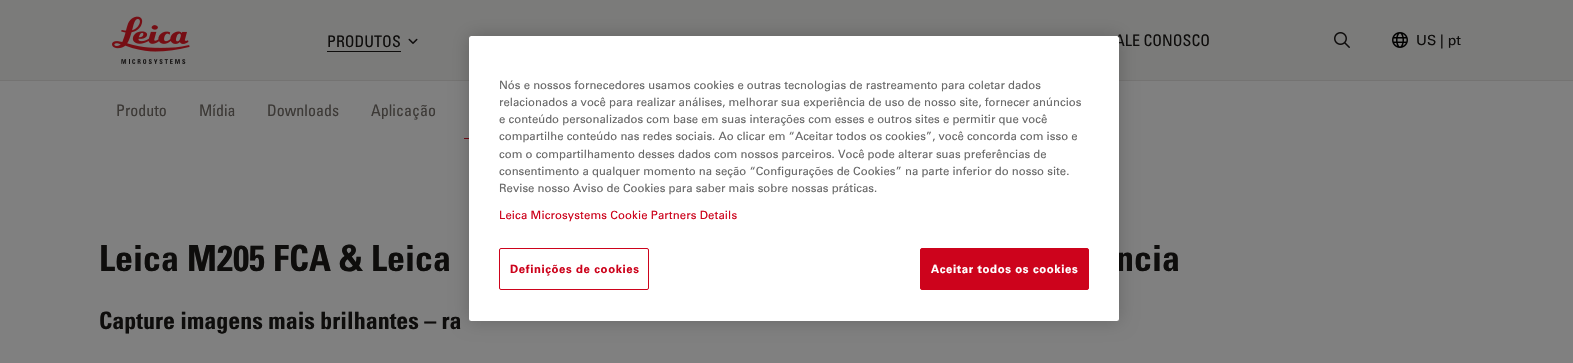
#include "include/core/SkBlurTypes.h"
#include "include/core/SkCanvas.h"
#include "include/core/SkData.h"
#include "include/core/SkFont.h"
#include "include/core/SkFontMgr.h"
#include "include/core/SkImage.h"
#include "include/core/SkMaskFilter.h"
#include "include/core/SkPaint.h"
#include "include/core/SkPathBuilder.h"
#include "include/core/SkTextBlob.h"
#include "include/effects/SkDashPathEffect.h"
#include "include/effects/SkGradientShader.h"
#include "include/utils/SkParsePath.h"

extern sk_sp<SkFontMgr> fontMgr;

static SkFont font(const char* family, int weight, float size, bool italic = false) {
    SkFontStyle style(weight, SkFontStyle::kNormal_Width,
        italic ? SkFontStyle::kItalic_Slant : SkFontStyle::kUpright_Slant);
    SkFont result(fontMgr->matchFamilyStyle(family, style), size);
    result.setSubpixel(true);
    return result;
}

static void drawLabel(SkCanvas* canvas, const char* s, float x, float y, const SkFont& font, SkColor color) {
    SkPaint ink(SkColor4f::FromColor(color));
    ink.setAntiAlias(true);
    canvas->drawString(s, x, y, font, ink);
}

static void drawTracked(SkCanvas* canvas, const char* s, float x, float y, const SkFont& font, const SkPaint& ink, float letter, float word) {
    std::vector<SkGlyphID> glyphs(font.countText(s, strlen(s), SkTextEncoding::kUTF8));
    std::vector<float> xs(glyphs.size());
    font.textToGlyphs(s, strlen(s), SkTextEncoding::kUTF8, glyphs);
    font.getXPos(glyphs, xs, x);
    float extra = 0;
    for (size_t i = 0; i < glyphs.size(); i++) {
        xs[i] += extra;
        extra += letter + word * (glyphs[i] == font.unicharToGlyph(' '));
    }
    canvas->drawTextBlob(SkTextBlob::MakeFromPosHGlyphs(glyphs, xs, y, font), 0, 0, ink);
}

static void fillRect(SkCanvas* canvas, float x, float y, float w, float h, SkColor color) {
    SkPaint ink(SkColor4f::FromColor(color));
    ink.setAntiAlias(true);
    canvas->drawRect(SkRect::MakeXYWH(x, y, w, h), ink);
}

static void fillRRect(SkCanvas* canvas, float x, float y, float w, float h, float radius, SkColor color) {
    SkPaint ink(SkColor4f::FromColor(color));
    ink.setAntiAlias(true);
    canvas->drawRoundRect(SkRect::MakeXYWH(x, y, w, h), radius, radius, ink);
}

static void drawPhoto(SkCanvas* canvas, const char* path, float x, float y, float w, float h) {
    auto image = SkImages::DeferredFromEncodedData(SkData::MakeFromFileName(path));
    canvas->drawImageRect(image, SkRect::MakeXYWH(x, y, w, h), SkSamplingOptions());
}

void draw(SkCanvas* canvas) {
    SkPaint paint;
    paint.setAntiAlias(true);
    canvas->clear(0xFF808080);
    fillRect(canvas, 0, 0, 1573, 80, 0xFF7B7B7A);
    fillRect(canvas, 0, 80, 1573, 1, 0xFF747372);
    drawPhoto(canvas, "assets/img1.png", 112, 16, 78, 48);
    SkFont font1 = font("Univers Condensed", 400, 16);
    drawLabel(canvas, "PRODUTOS", 327, 47, font1, 0xFF0E0D0C);
    fillRect(canvas, 327, 51, 74, 1, 0xFF0E0D0C);
    drawPhoto(canvas, "assets/img2.png", 408, 38, 10, 6);
    drawLabel(canvas, "ALE CONOSCO", 1115, 46, font1, 0xFF0E0D0C);
    drawPhoto(canvas, "assets/img3.png", 1334, 32, 16, 16);
    drawPhoto(canvas, "assets/img4.png", 1392, 32, 16, 16);
    SkFont font2 = font("Univers", 400, 14);
    drawLabel(canvas, "US | pt", 1416, 45, font2, 0xFF0E0D0C);
    drawLabel(canvas, "Produto", 116, 116, font1, 0xFF3C3936);
    drawLabel(canvas, "Mídia", 199, 116, font1, 0xFF3C3936);
    drawLabel(canvas, "Downloads", 267, 116, font1, 0xFF3C3936);
    drawLabel(canvas, "Aplicação", 371, 116, font1, 0xFF3C3936);
    fillRect(canvas, 464, 138, 5, 1, 0xFF710914);
    SkFont font3 = font("Univers Condensed", 700, 36);
    drawLabel(canvas, "Leica M205 FCA & Leica", 99, 271, font3, 0xFF0E0D0C);
    drawLabel(canvas, "ncia", 1116, 271, font3, 0xFF0E0D0C);
    SkFont font4 = font("Univers Condensed", 700, 24);
    drawLabel(canvas, "Capture imagens mais brilhantes – ra", 99, 329, font4, 0xFF0E0D0C);
    paint.setColor(0x33000000);
    paint.setMaskFilter(SkMaskFilter::MakeBlur(kNormal_SkBlurStyle, 9));
    canvas->drawRoundRect(SkRect::MakeXYWH(469, 36, 650, 285), 2.5f, 2.5f, paint);
    paint.setMaskFilter(nullptr);
    fillRRect(canvas, 469, 36, 650, 285, 2.5f, 0xFFFFFFFF);
    SkFont font5 = font("Univers", 400, 11.38f);
    drawLabel(canvas, "Nós e nossos fornecedores usamos cookies e outras tecnologias de rastreamento para coletar dados", 499, 89, font5, 0xFF696969);
    drawLabel(canvas, "relacionados a você para realizar análises, melhorar sua experiência de uso de nosso site, fornecer anúncios", 499, 106, font5, 0xFF696969);
    drawLabel(canvas, "e conteúdo personalizados com base em suas interações com esses e outros sites e permitir que você", 499, 123, font5, 0xFF696969);
    drawLabel(canvas, "compartilhe conteúdo nas redes sociais. Ao clicar em “Aceitar todos os cookies”, você concorda com isso e", 499, 140, font5, 0xFF696969);
    drawLabel(canvas, "com o compartilhamento desses dados com nossos parceiros. Você pode alterar suas preferências de", 499, 158, font5, 0xFF696969);
    drawLabel(canvas, "consentimento a qualquer momento na seção “Configurações de Cookies” na parte inferior do nosso site.", 499, 175, font5, 0xFF696969);
    drawLabel(canvas, "Revise nosso Aviso de Cookies para saber mais sobre nossas práticas.", 499, 192, font5, 0xFF696969);
    paint.setColor(0xFFCD031C);
    drawTracked(canvas, "Leica Microsystems Cookie Partners Details", 499, 219, font5, paint, 0.1f, 0);
    paint.setStroke(true);
    paint.setStrokeWidth(1);
    canvas->drawRoundRect(SkRect::MakeXYWH(499.5f, 248.5f, 149, 41), 1.5f, 1.5f, paint);
    SkFont font6 = font("Univers", 700, 11.38f);
    paint.setStroke(false);
    drawTracked(canvas, "Definições de cookies", 510, 273, font6, paint, 0.6f, 0);
    canvas->drawRoundRect(SkRect::MakeXYWH(920.5f, 248.5f, 168, 41), 1.5f, 1.5f, paint);
    paint.setStroke(true);
    canvas->drawRoundRect(SkRect::MakeXYWH(920.5f, 248.5f, 168, 41), 1.5f, 1.5f, paint);
    paint.setStroke(false);
    paint.setColor(0xFFFFFFFF);
    drawTracked(canvas, "Aceitar todos os cookies", 931, 273, font6, paint, 0.6f, 0);
}
